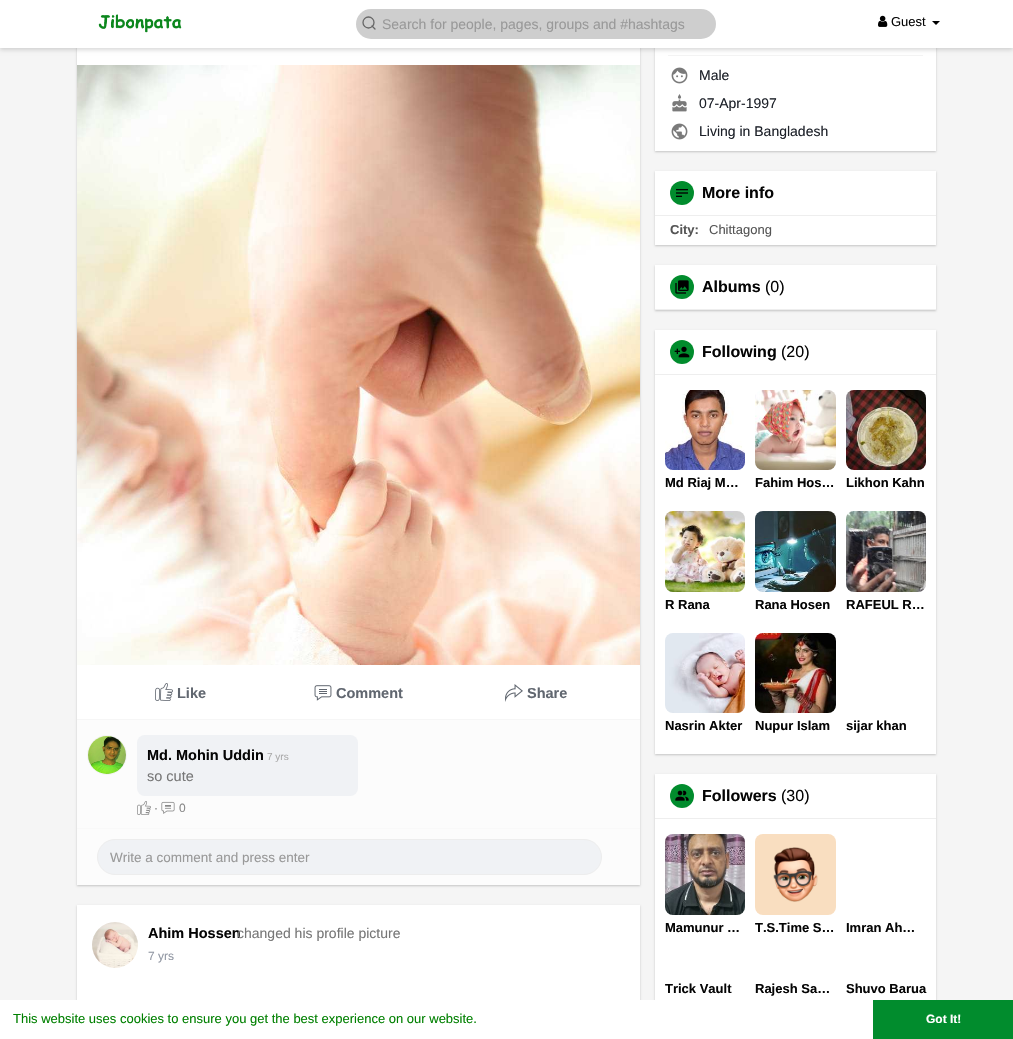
#include "include/core/SkBlurTypes.h"
#include "include/core/SkCanvas.h"
#include "include/core/SkData.h"
#include "include/core/SkFont.h"
#include "include/core/SkFontMgr.h"
#include "include/core/SkImage.h"
#include "include/core/SkMaskFilter.h"
#include "include/core/SkPaint.h"
#include "include/core/SkPathBuilder.h"
#include "include/core/SkTextBlob.h"
#include "include/effects/SkDashPathEffect.h"
#include "include/effects/SkGradientShader.h"
#include "include/utils/SkParsePath.h"

extern sk_sp<SkFontMgr> fontMgr;

static SkFont font(const char* family, int weight, float size, bool italic = false) {
    SkFontStyle style(weight, SkFontStyle::kNormal_Width,
        italic ? SkFontStyle::kItalic_Slant : SkFontStyle::kUpright_Slant);
    SkFont result(fontMgr->matchFamilyStyle(family, style), size);
    result.setSubpixel(true);
    return result;
}

static void drawLabel(SkCanvas* canvas, const char* s, float x, float y, const SkFont& font, SkColor color) {
    SkPaint ink(SkColor4f::FromColor(color));
    ink.setAntiAlias(true);
    canvas->drawString(s, x, y, font, ink);
}

static void fillRect(SkCanvas* canvas, float x, float y, float w, float h, SkColor color) {
    SkPaint ink(SkColor4f::FromColor(color));
    ink.setAntiAlias(true);
    canvas->drawRect(SkRect::MakeXYWH(x, y, w, h), ink);
}

static void fillRRect(SkCanvas* canvas, float x, float y, float w, float h, float radius, SkColor color) {
    SkPaint ink(SkColor4f::FromColor(color));
    ink.setAntiAlias(true);
    canvas->drawRoundRect(SkRect::MakeXYWH(x, y, w, h), radius, radius, ink);
}

static void drawPhoto(SkCanvas* canvas, const char* path, float x, float y, float w, float h) {
    auto image = SkImages::DeferredFromEncodedData(SkData::MakeFromFileName(path));
    canvas->drawImageRect(image, SkRect::MakeXYWH(x, y, w, h), SkSamplingOptions());
}

static SkPath parsePath(const char* data, bool evenOdd = false) {
    SkPath result = *SkParsePath::FromSVGString(data);
    if (evenOdd) result.setFillType(SkPathFillType::kEvenOdd);
    return result;
}

void draw(SkCanvas* canvas) {
    SkPaint paint;
    paint.setAntiAlias(true);
    canvas->clear(0xFFF5F5F5);
    paint.setColor(0x33000000);
    paint.setMaskFilter(SkMaskFilter::MakeBlur(kNormal_SkBlurStyle, 1));
    canvas->drawRect(SkRect::MakeXYWH(77, -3, 563, 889), paint);
    paint.setMaskFilter(nullptr);
    fillRect(canvas, 77, 48, 563, 671, 0xFFFFFFFF);
    paint.setMaskFilter(SkMaskFilter::MakeBlur(kNormal_SkBlurStyle, 1));
    canvas->drawRect(SkRect::MakeXYWH(655, -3, 281, 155), paint);
    paint.setMaskFilter(nullptr);
    fillRect(canvas, 655, 48, 281, 103, 0xFFFFFFFF);
    fillRect(canvas, 668, 55, 255, 1, 0xFFF4F4F4);
    paint.setColor(0x26000000);
    paint.setMaskFilter(SkMaskFilter::MakeBlur(kNormal_SkBlurStyle, 2));
    canvas->drawRect(SkRect::MakeXYWH(0, 2, 1013, 48), paint);
    paint.setMaskFilter(nullptr);
    fillRect(canvas, 0, 0, 1013, 48, 0xFFFFFFFF);
    drawPhoto(canvas, "assets/img1.png", 98, 14, 84, 19);
    fillRRect(canvas, 356, 9, 360, 30, 15, 0xFFCECECE);
    paint.setStroke(true);
    paint.setStrokeWidth(1.3f);
    paint.setColor(0xFF666666);
    canvas->drawCircle(368.5f, 22.5f, 5.5f, paint);
    paint.setStrokeCap(SkPaint::kRound_Cap);
    paint.setStrokeJoin(SkPaint::kRound_Join);
    canvas->drawPath(parsePath("M375 29L372 26"), paint);
    SkFont font1 = font("Liberation Sans", 400, 14);
    drawLabel(canvas, "Search for people, pages, groups and #hashtags", 382, 29, font1, 0xFF999999);
    drawPhoto(canvas, "assets/img2.png", 878, 15, 10, 12);
    SkFont font2 = font("Liberation Sans", 400, 13);
    drawLabel(canvas, "Guest", 891, 26, font2, 0xFF050505);
    paint.setStroke(false);
    paint.setColor(0xFF000000);
    canvas->drawPath(parsePath("M932 21H940L936 25Z"), paint);
    drawPhoto(canvas, "assets/img3.png", 77, 65, 563, 600);
    drawPhoto(canvas, "assets/img4.png", 155, 683, 18, 18);
    SkFont font3 = font("Liberation Sans", 700, 14.5f);
    drawLabel(canvas, "Like", 177, 698, font3, 0xFF616770);
    drawPhoto(canvas, "assets/img5.png", 314, 685, 18, 16);
    drawLabel(canvas, "Comment", 336, 698, font3, 0xFF616770);
    drawPhoto(canvas, "assets/img6.png", 505, 684, 18, 18);
    drawLabel(canvas, "Share", 527, 698, font3, 0xFF616770);
    fillRect(canvas, 77, 720, 563, 165, 0xFFFCFCFC);
    fillRect(canvas, 77, 719, 563, 1, 0xFFF6F6F6);
    paint.setStroke(true);
    paint.setStrokeWidth(1);
    paint.setStrokeCap(SkPaint::kButt_Cap);
    paint.setStrokeJoin(SkPaint::kMiter_Join);
    paint.setColor(0xFFF4F4F4);
    canvas->drawCircle(107, 755, 19.5f, paint);
    drawPhoto(canvas, "assets/img7.png", 88, 736, 38, 38);
    fillRRect(canvas, 137, 735, 221, 61, 8, 0xFFF0F2F5);
    drawLabel(canvas, "Md. Mohin Uddin", 147, 760, font3, 0xFF050505);
    SkFont font4 = font("Liberation Sans", 400, 10);
    drawLabel(canvas, "7 yrs", 267, 760, font4, 0xFFAAAAAA);
    SkFont font5 = font("Liberation Sans", 400, 14.5f);
    drawLabel(canvas, "so cute", 147, 781, font5, 0xFF777777);
    drawPhoto(canvas, "assets/img8.png", 137, 801, 14, 14);
    SkFont font6 = font("Liberation Sans", 400, 12);
    drawLabel(canvas, "·", 154, 812, font6, 0xFF888888);
    drawPhoto(canvas, "assets/img9.png", 161, 801, 14, 13);
    drawLabel(canvas, "0", 179, 812, font6, 0xFF888888);
    fillRect(canvas, 77, 828, 563, 1, 0xFFF9F9F9);
    paint.setStroke(false);
    paint.setColor(0xFFF0F2F5);
    canvas->drawRoundRect(SkRect::MakeXYWH(97.5f, 839.5f, 504, 35), 17.5f, 17.5f, paint);
    paint.setStroke(true);
    paint.setColor(0xFFEDEDED);
    canvas->drawRoundRect(SkRect::MakeXYWH(97.5f, 839.5f, 504, 35), 17.5f, 17.5f, paint);
    SkFont font7 = font("Liberation Sans", 400, 13.5f);
    drawLabel(canvas, "Write a comment and press enter", 110, 862, font7, 0xFF999999);
    paint.setStroke(false);
    paint.setColor(0x33000000);
    paint.setMaskFilter(SkMaskFilter::MakeBlur(kNormal_SkBlurStyle, 1));
    canvas->drawRect(SkRect::MakeXYWH(77, 906, 563, 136), paint);
    paint.setMaskFilter(nullptr);
    fillRect(canvas, 77, 905, 563, 95, 0xFFFFFFFF);
    drawPhoto(canvas, "assets/img10.png", 92, 922, 46, 46);
    drawLabel(canvas, "Ahim Hossen", 148, 938, font3, 0xFF050505);
    drawLabel(canvas, "changed his profile picture", 237, 938, font1, 0xFF777777);
    drawLabel(canvas, "7 yrs", 148, 960, font6, 0xFF9197A3);
    drawPhoto(canvas, "assets/img11.png", 671, 67, 17, 17);
    drawLabel(canvas, "Male", 699, 80, font1, 0xFF1D2129);
    drawPhoto(canvas, "assets/img12.png", 672, 94, 15, 18);
    drawLabel(canvas, "07-Apr-1997", 699, 108, font1, 0xFF1D2129);
    drawPhoto(canvas, "assets/img13.png", 671, 123, 17, 17);
    drawLabel(canvas, "Living in Bangladesh", 699, 136, font1, 0xFF1D2129);
    paint.setMaskFilter(SkMaskFilter::MakeBlur(kNormal_SkBlurStyle, 1));
    canvas->drawRect(SkRect::MakeXYWH(655, 172, 281, 74), paint);
    paint.setMaskFilter(nullptr);
    fillRect(canvas, 655, 171, 281, 74, 0xFFFFFFFF);
    fillRect(canvas, 655, 215, 281, 1, 0xFFEEEEEE);
    paint.setColor(0xFF018C2D);
    canvas->drawCircle(682, 193, 12, paint);
    drawPhoto(canvas, "assets/img14.png", 676, 189, 12, 8);
    SkFont font8 = font("Liberation Sans", 700, 16);
    drawLabel(canvas, "More info", 702, 198, font8, 0xFF050505);
    SkFont font9 = font("Liberation Sans", 700, 13);
    drawLabel(canvas, "City:", 670, 234, font9, 0xFF555555);
    drawLabel(canvas, "Chittagong", 709, 234, font2, 0xFF555555);
    paint.setColor(0x33000000);
    paint.setMaskFilter(SkMaskFilter::MakeBlur(kNormal_SkBlurStyle, 1));
    canvas->drawRect(SkRect::MakeXYWH(655, 266, 281, 45), paint);
    paint.setMaskFilter(nullptr);
    fillRect(canvas, 655, 265, 281, 44, 0xFFFFFFFF);
    fillRect(canvas, 655, 309, 281, 1, 0xFFEEEEEE);
    paint.setColor(0xFF018C2D);
    canvas->drawCircle(682, 287, 12, paint);
    drawPhoto(canvas, "assets/img15.png", 675, 280, 14, 14);
    drawLabel(canvas, "Albums", 702, 292, font8, 0xFF050505);
    SkFont font10 = font("Liberation Sans", 400, 16);
    drawLabel(canvas, "(0)", 765, 292, font10, 0xFF050505);
    paint.setColor(0x33000000);
    paint.setMaskFilter(SkMaskFilter::MakeBlur(kNormal_SkBlurStyle, 1));
    canvas->drawRect(SkRect::MakeXYWH(655, 331, 281, 424), paint);
    paint.setMaskFilter(nullptr);
    fillRect(canvas, 655, 330, 281, 424, 0xFFFFFFFF);
    fillRect(canvas, 655, 374, 281, 1, 0xFFEEEEEE);
    paint.setColor(0xFF018C2D);
    canvas->drawCircle(682, 352, 12, paint);
    drawPhoto(canvas, "assets/img16.png", 674, 346, 16, 12);
    drawLabel(canvas, "Following", 702, 357, font8, 0xFF050505);
    drawLabel(canvas, "(20)", 781, 357, font10, 0xFF050505);
    drawPhoto(canvas, "assets/img17.png", 665, 390, 80, 80);
    drawLabel(canvas, "Md Riaj M…", 665, 487, font9, 0xFF050505);
    drawPhoto(canvas, "assets/img18.png", 755, 390, 81, 80);
    drawLabel(canvas, "Fahim Hos…", 755, 487, font9, 0xFF050505);
    drawPhoto(canvas, "assets/img19.png", 846, 390, 80, 80);
    drawLabel(canvas, "Likhon Kahn", 846, 487, font9, 0xFF050505);
    drawPhoto(canvas, "assets/img20.png", 665, 511, 80, 81);
    drawLabel(canvas, "R Rana", 665, 609, font9, 0xFF050505);
    drawPhoto(canvas, "assets/img21.png", 755, 511, 81, 81);
    drawLabel(canvas, "Rana Hosen", 755, 609, font9, 0xFF050505);
    drawPhoto(canvas, "assets/img22.png", 846, 511, 80, 81);
    drawLabel(canvas, "RAFEUL R…", 846, 609, font9, 0xFF050505);
    drawPhoto(canvas, "assets/img23.png", 665, 633, 80, 80);
    drawLabel(canvas, "Nasrin Akter", 665, 730, font9, 0xFF050505);
    drawPhoto(canvas, "assets/img24.png", 755, 633, 81, 80);
    drawLabel(canvas, "Nupur Islam", 755, 730, font9, 0xFF050505);
    drawLabel(canvas, "sijar khan", 846, 730, font9, 0xFF050505);
    paint.setColor(0x33000000);
    paint.setMaskFilter(SkMaskFilter::MakeBlur(kNormal_SkBlurStyle, 1));
    canvas->drawRect(SkRect::MakeXYWH(655, 775, 281, 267), paint);
    paint.setMaskFilter(nullptr);
    fillRect(canvas, 655, 774, 281, 226, 0xFFFFFFFF);
    fillRect(canvas, 655, 818, 281, 1, 0xFFEEEEEE);
    paint.setColor(0xFF018C2D);
    canvas->drawCircle(682, 796, 12, paint);
    drawPhoto(canvas, "assets/img25.png", 675, 790, 14, 11);
    drawLabel(canvas, "Followers", 702, 801, font8, 0xFF050505);
    drawLabel(canvas, "(30)", 781, 801, font10, 0xFF050505);
    drawPhoto(canvas, "assets/img26.png", 665, 834, 80, 81);
    drawLabel(canvas, "Mamunur …", 665, 932, font9, 0xFF050505);
    drawPhoto(canvas, "assets/img27.png", 755, 834, 81, 81);
    drawLabel(canvas, "T.S.Time S…", 755, 932, font9, 0xFF050505);
    drawLabel(canvas, "Imran Ah…", 846, 932, font9, 0xFF050505);
    drawLabel(canvas, "Trick Vault", 665, 993, font9, 0xFF050505);
    drawLabel(canvas, "Rajesh Sa…", 755, 993, font9, 0xFF050505);
    drawLabel(canvas, "Shuvo Barua", 846, 993, font9, 0xFF050505);
    fillRect(canvas, 0, 1000, 873, 39, 0xFFFFFFFF);
    drawLabel(canvas, "This website uses cookies to ensure you get the best experience on our website.", 13, 1023, font2, 0xFF008000);
    fillRect(canvas, 873, 1000, 140, 39, 0xFF018C2D);
    SkFont font11 = font("Liberation Sans", 700, 12);
    drawLabel(canvas, "Got It!", 926, 1023, font11, 0xFFFFFFFF);
}
